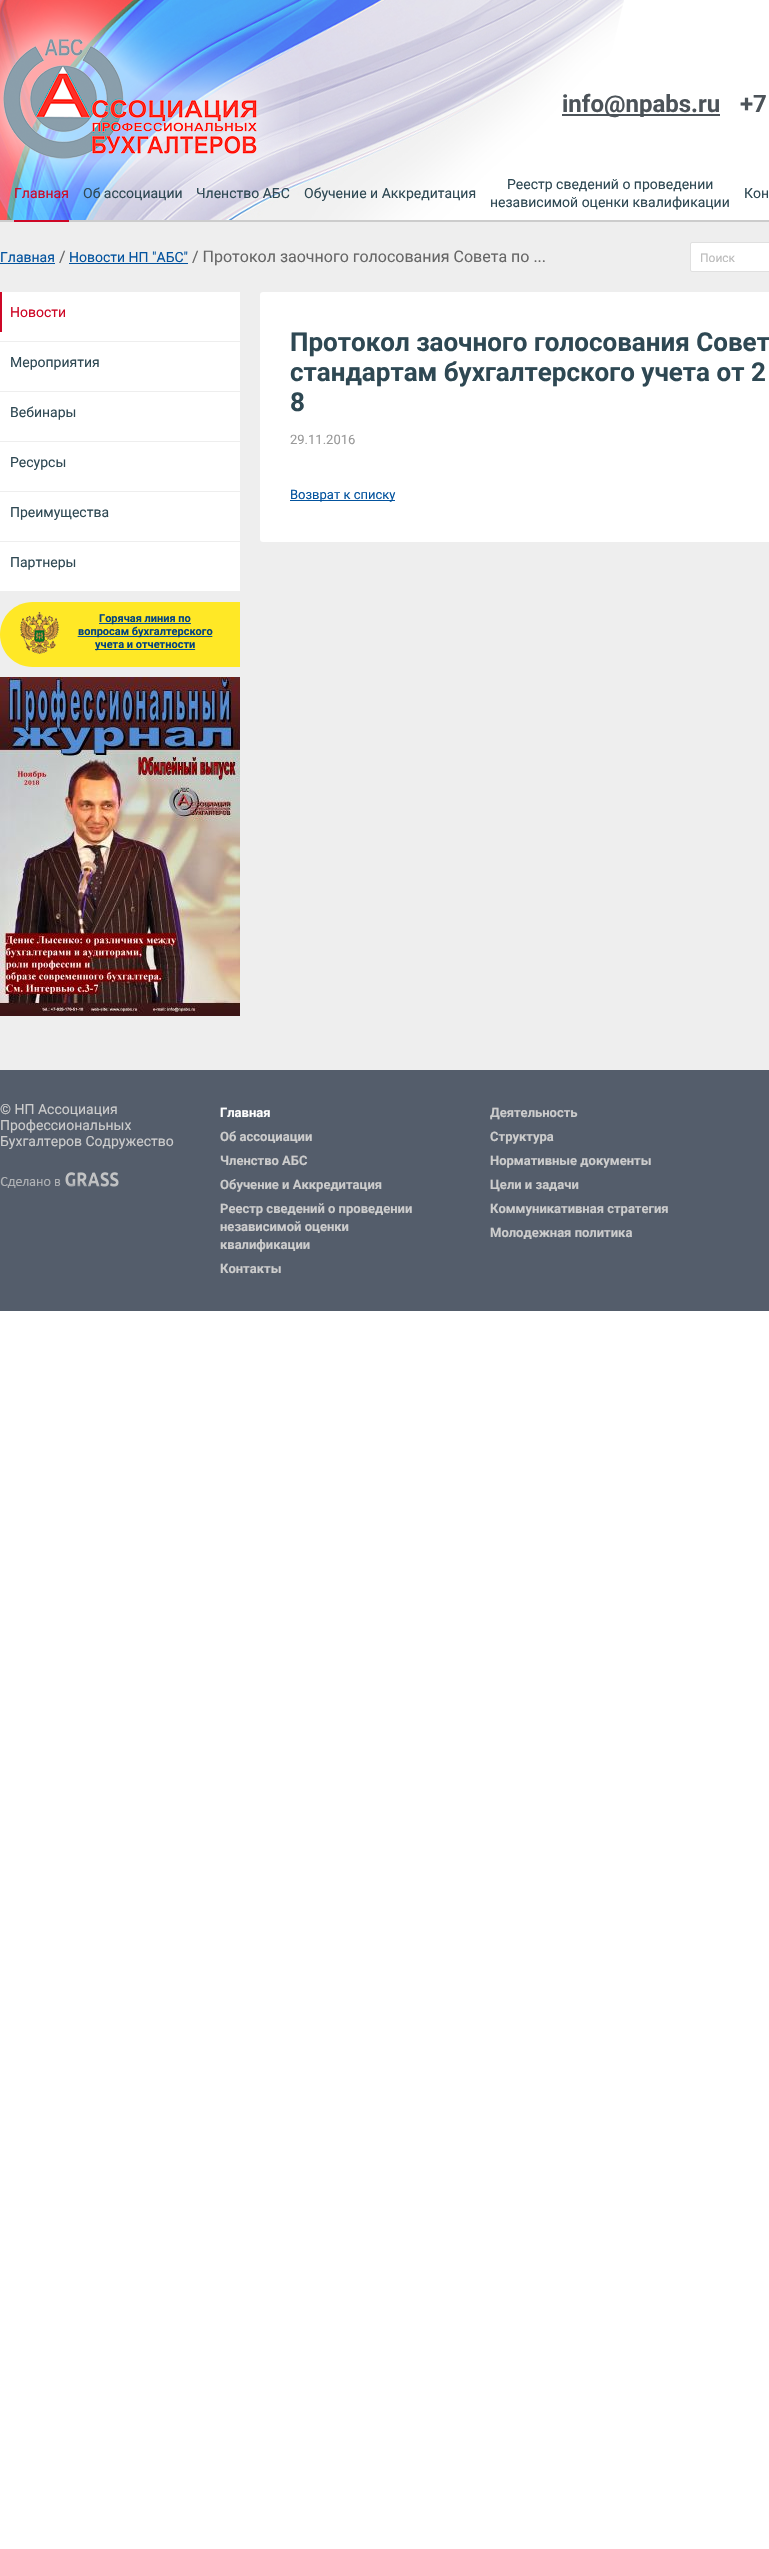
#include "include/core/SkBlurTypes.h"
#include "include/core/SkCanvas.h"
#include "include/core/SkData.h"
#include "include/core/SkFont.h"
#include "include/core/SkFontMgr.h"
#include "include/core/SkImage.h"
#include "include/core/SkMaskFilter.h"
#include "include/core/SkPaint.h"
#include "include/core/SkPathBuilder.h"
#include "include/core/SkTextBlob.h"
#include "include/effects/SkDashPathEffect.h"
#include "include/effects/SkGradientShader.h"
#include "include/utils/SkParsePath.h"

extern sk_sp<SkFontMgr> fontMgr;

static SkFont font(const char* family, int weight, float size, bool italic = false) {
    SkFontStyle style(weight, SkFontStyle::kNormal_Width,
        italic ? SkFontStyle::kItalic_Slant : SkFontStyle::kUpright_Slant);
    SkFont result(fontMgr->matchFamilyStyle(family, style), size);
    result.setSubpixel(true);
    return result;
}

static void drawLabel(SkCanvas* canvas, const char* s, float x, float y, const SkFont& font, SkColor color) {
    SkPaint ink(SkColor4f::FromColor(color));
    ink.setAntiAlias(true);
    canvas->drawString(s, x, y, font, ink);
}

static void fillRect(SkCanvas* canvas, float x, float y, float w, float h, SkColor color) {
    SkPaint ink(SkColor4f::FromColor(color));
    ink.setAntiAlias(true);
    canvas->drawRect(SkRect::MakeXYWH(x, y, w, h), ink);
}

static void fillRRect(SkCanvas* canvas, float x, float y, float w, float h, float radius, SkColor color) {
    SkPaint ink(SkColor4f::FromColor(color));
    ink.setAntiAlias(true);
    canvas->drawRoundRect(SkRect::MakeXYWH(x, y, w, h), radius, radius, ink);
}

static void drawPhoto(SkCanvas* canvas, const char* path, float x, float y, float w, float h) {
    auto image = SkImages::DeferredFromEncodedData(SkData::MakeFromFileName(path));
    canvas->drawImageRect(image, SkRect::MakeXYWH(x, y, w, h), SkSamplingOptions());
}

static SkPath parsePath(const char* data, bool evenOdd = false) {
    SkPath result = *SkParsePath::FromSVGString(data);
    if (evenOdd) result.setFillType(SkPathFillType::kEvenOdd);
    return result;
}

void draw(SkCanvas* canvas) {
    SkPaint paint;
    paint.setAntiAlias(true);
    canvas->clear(0xFFFFFFFF);
    drawPhoto(canvas, "assets/img1.png", 0, 0, 624, 220);
    fillRect(canvas, 0, 220, 769, 2, 0xFFCCCCCC);
    drawPhoto(canvas, "assets/img2.png", 0, 0, 299, 213);
    fillRect(canvas, 562, 114, 158, 2, 0xFF4C5359);
    SkFont font1 = font("Roboto", 700, 24);
    drawLabel(canvas, "info@npabs.ru", 562, 112, font1, 0xFF4C5359);
    drawLabel(canvas, "+7", 740, 112, font1, 0xFF4C5359);
    SkFont font2 = font("Roboto", 400, 14);
    drawLabel(canvas, "Главная", 14, 198, font2, 0xFFCE0726);
    fillRect(canvas, 14, 220, 55, 2, 0xFFCE0726);
    drawLabel(canvas, "Об ассоциации", 83, 198, font2, 0xFF2E4853);
    drawLabel(canvas, "Членство АБС", 196, 198, font2, 0xFF2E4853);
    drawLabel(canvas, "Обучение и Аккредитация", 304, 198, font2, 0xFF2E4853);
    drawLabel(canvas, "Реестр сведений о проведении", 507, 189, font2, 0xFF2E4853);
    drawLabel(canvas, "независимой оценки квалификации", 490, 207, font2, 0xFF2E4853);
    drawLabel(canvas, "Кон", 744, 198, font2, 0xFF2E4853);
    fillRect(canvas, 0, 222, 769, 848, 0xFFEEEEEE);
    drawLabel(canvas, "Главная", 0, 262, font2, 0xFF03539E);
    fillRect(canvas, 0, 263, 55, 1, 0xFF03539E);
    SkFont font3 = font("Roboto", 400, 16);
    drawLabel(canvas, "/", 59, 262, font3, 0xFF666666);
    drawLabel(canvas, "Новости НП \"АБС\"", 69, 262, font2, 0xFF03539E);
    fillRect(canvas, 69, 263, 119, 1, 0xFF03539E);
    drawLabel(canvas, "/ Протокол заочного голосования Совета по ...", 192, 262, font3, 0xFF666666);
    paint.setColor(0xFFFFFFFF);
    canvas->drawRoundRect(SkRect::MakeXYWH(690.5f, 242.5f, 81, 29), 1.5f, 1.5f, paint);
    paint.setStroke(true);
    paint.setStrokeWidth(1);
    paint.setColor(0xFFE0E0E0);
    canvas->drawRoundRect(SkRect::MakeXYWH(690.5f, 242.5f, 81, 29), 1.5f, 1.5f, paint);
    SkFont font4 = font("Roboto", 400, 12);
    drawLabel(canvas, "Поиск", 700, 262, font4, 0xFFBBBBBB);
    fillRect(canvas, 0, 292, 240, 49, 0xFFFFFFFF);
    fillRect(canvas, 0, 292, 2, 40, 0xFFCE0726);
    drawLabel(canvas, "Новости", 10, 317, font2, 0xFFCE0726);
    fillRect(canvas, 0, 342, 240, 49, 0xFFFFFFFF);
    drawLabel(canvas, "Мероприятия", 10, 367, font2, 0xFF2E4853);
    fillRect(canvas, 0, 392, 240, 49, 0xFFFFFFFF);
    drawLabel(canvas, "Вебинары", 10, 417, font2, 0xFF2E4853);
    fillRect(canvas, 0, 442, 240, 49, 0xFFFFFFFF);
    drawLabel(canvas, "Ресурсы", 10, 467, font2, 0xFF2E4853);
    fillRect(canvas, 0, 492, 240, 49, 0xFFFFFFFF);
    drawLabel(canvas, "Преимущества", 10, 517, font2, 0xFF2E4853);
    fillRect(canvas, 0, 542, 240, 49, 0xFFFFFFFF);
    drawLabel(canvas, "Партнеры", 10, 567, font2, 0xFF2E4853);
    paint.setStroke(false);
    paint.setColor(0xFFFFE826);
    canvas->drawPath(parsePath("M32.5 602H240V667H32.5C14.5 667 0 652.5 0 634.5C0 616.5 14.5 602 32.5 602Z"), paint);
    drawPhoto(canvas, "assets/img3.png", 20, 612, 193, 42);
    fillRect(canvas, 99, 623, 92, 1, 0xFF03539E);
    SkFont font5 = font("Roboto", 700, 11);
    drawLabel(canvas, "Горячая линия по", 99, 622, font5, 0xFF03437F);
    fillRect(canvas, 96, 636, 84, 1, 0xFF03539E);
    drawLabel(canvas, "вопросам бухгалтерского", 78, 635, font5, 0xFF03437F);
    fillRect(canvas, 95, 649, 4, 1, 0xFF03539E);
    drawLabel(canvas, "учета и отчетности", 95, 648, font5, 0xFF03437F);
    drawPhoto(canvas, "assets/img4.png", 0, 677, 240, 339);
    fillRRect(canvas, 260, 292, 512, 250, 3, 0xFFFFFFFF);
    SkFont font6 = font("Roboto", 700, 26);
    drawLabel(canvas, "Протокол заочного голосования Совет", 290, 351, font6, 0xFF2E4853);
    drawLabel(canvas, "стандартам бухгалтерского учета от 2", 290, 381, font6, 0xFF2E4853);
    drawLabel(canvas, "8", 290, 411, font6, 0xFF2E4853);
    SkFont font7 = font("Roboto", 400, 13);
    drawLabel(canvas, "29.11.2016", 290, 444, font7, 0xFF999999);
    fillRect(canvas, 290, 500, 105, 1, 0xFF03539E);
    drawLabel(canvas, "Возврат к списку", 290, 499, font7, 0xFF03539E);
    fillRect(canvas, 0, 1070, 769, 241, 0xFF545D6B);
    drawLabel(canvas, "© НП Ассоциация", 0, 1114, font2, 0xFFCCCCCC);
    drawLabel(canvas, "Профессиональных", 0, 1130, font2, 0xFFCCCCCC);
    drawLabel(canvas, "Бухгалтеров Содружество", 0, 1146, font2, 0xFFCCCCCC);
    drawPhoto(canvas, "assets/img5.png", 0, 1172, 119, 16);
    SkFont font8 = font("Roboto", 700, 13);
    drawLabel(canvas, "Главная", 220, 1117, font8, 0xFFFFFFFF);
    drawLabel(canvas, "Об ассоциации", 220, 1141, font8, 0xFFCCCCCC);
    drawLabel(canvas, "Членство АБС", 220, 1165, font8, 0xFFCCCCCC);
    drawLabel(canvas, "Обучение и Аккредитация", 220, 1189, font8, 0xFFCCCCCC);
    drawLabel(canvas, "Реестр сведений о проведении", 220, 1213, font8, 0xFFCCCCCC);
    drawLabel(canvas, "независимой оценки", 220, 1231, font8, 0xFFCCCCCC);
    drawLabel(canvas, "квалификации", 220, 1249, font8, 0xFFCCCCCC);
    drawLabel(canvas, "Контакты", 220, 1273, font8, 0xFFCCCCCC);
    drawLabel(canvas, "Деятельность", 490, 1117, font8, 0xFFCCCCCC);
    drawLabel(canvas, "Структура", 490, 1141, font8, 0xFFCCCCCC);
    drawLabel(canvas, "Нормативные документы", 490, 1165, font8, 0xFFCCCCCC);
    drawLabel(canvas, "Цели и задачи", 490, 1189, font8, 0xFFCCCCCC);
    drawLabel(canvas, "Коммуникативная стратегия", 490, 1213, font8, 0xFFCCCCCC);
    drawLabel(canvas, "Молодежная политика", 490, 1237, font8, 0xFFCCCCCC);
}
